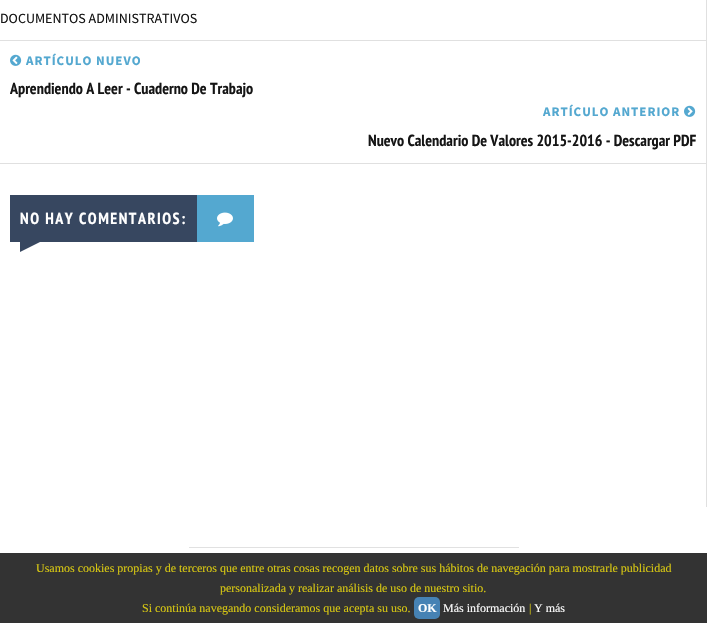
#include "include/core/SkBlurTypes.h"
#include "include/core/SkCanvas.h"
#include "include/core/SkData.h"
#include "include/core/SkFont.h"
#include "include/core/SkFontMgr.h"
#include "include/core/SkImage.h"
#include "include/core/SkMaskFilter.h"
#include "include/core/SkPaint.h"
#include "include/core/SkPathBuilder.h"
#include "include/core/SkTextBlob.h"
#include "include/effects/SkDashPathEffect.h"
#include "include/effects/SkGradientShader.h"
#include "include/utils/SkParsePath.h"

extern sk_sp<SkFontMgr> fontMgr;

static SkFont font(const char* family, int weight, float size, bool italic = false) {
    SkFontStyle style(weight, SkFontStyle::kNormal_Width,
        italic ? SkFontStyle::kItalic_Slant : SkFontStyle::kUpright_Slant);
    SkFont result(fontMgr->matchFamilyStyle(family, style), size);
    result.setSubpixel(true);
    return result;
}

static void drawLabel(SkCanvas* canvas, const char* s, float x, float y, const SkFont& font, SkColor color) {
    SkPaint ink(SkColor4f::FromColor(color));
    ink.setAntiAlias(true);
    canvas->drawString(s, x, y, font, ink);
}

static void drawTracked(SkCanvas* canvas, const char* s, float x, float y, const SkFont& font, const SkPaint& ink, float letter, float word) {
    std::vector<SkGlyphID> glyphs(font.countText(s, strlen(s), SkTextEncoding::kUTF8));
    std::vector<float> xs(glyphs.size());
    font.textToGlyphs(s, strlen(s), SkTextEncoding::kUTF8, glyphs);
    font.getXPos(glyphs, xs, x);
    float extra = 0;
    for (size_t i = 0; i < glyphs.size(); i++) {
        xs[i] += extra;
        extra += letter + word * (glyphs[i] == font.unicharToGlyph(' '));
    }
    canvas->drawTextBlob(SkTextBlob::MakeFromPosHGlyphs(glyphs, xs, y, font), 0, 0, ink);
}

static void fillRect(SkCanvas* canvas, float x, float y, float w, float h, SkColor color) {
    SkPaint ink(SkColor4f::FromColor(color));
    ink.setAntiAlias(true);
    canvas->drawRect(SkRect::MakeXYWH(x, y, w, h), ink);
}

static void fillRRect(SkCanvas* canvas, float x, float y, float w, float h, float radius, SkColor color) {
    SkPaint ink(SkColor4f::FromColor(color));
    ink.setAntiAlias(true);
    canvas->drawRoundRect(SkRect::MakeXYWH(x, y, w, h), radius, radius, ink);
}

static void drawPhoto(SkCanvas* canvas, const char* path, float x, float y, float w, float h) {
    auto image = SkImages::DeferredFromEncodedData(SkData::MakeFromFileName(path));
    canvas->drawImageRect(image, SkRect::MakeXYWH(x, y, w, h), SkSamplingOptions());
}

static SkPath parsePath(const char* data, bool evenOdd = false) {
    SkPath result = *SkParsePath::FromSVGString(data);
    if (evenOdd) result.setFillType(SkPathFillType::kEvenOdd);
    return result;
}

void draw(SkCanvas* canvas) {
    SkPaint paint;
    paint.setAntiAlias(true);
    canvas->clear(0xFFFFFFFF);
    fillRect(canvas, 706, 0, 1, 507, 0xFFE0E0E0);
    SkFont font1 = font("Source Sans Pro", 400, 14);
    drawLabel(canvas, "DOCUMENTOS ADMINISTRATIVOS", 0, 23, font1, 0xFF151515);
    fillRect(canvas, 0, 40, 706, 1, 0xFFE0E0E0);
    fillRect(canvas, 0, 163, 706, 1, 0xFFE0E0E0);
    drawPhoto(canvas, "assets/img1.png", 10, 54, 12, 12);
    SkFont font2 = font("Source Sans Pro", 700, 13);
    paint.setColor(0xFF54A8D0);
    drawTracked(canvas, "ARTÍCULO NUEVO", 26, 65, font2, paint, 1, 0);
    SkFont font3 = font("PT Sans Narrow", 700, 16);
    drawLabel(canvas, "Aprendiendo A Leer - Cuaderno De Trabajo", 10, 94, font3, 0xFF151515);
    drawTracked(canvas, "ARTÍCULO ANTERIOR", 543, 116, font2, paint, 1, 0);
    drawPhoto(canvas, "assets/img2.png", 684, 105, 12, 12);
    drawLabel(canvas, "Nuevo Calendario De Valores 2015-2016 - Descargar PDF", 368, 146, font3, 0xFF151515);
    fillRect(canvas, 10, 195, 187, 47, 0xFF374760);
    paint.setColor(0xFFFFFFFF);
    drawTracked(canvas, "NO HAY COMENTARIOS:", 20, 224, font3, paint, 1.5f, 0);
    fillRect(canvas, 197, 195, 57, 47, 0xFF54A8D0);
    drawPhoto(canvas, "assets/img3.png", 217, 212, 16, 15);
    paint.setColor(0xFF374760);
    canvas->drawPath(parsePath("M20 242H40L20 252Z"), paint);
    fillRect(canvas, 189, 547, 330, 1, 0xFFE1E1E1);
    fillRect(canvas, 0, 553, 707, 70, 0xFF333333);
    SkFont font4 = font("Liberation Serif", 400, 12);
    drawLabel(canvas, "Usamos cookies propias y de terceros que entre otras cosas recogen datos sobre sus hábitos de navegación para mostrarle publicidad", 36, 572, font4, 0xFFD7C712);
    drawLabel(canvas, "personalizada y realizar análisis de uso de nuestro sitio.", 220, 592, font4, 0xFFD7C712);
    drawLabel(canvas, "Si continúa navegando consideramos que acepta su uso.", 142, 612, font4, 0xFFD7C712);
    fillRRect(canvas, 414, 597, 26, 22, 5, 0xFF4682B4);
    SkFont font5 = font("Liberation Serif", 700, 12);
    drawLabel(canvas, "OK", 418, 612, font5, 0xFFFFFFFF);
    drawLabel(canvas, "Más información", 443, 612, font4, 0xFFFFFFFF);
    drawLabel(canvas, "|", 529, 612, font4, 0xFFD7C712);
    drawLabel(canvas, "Y más", 534, 612, font4, 0xFFFFFFFF);
}
